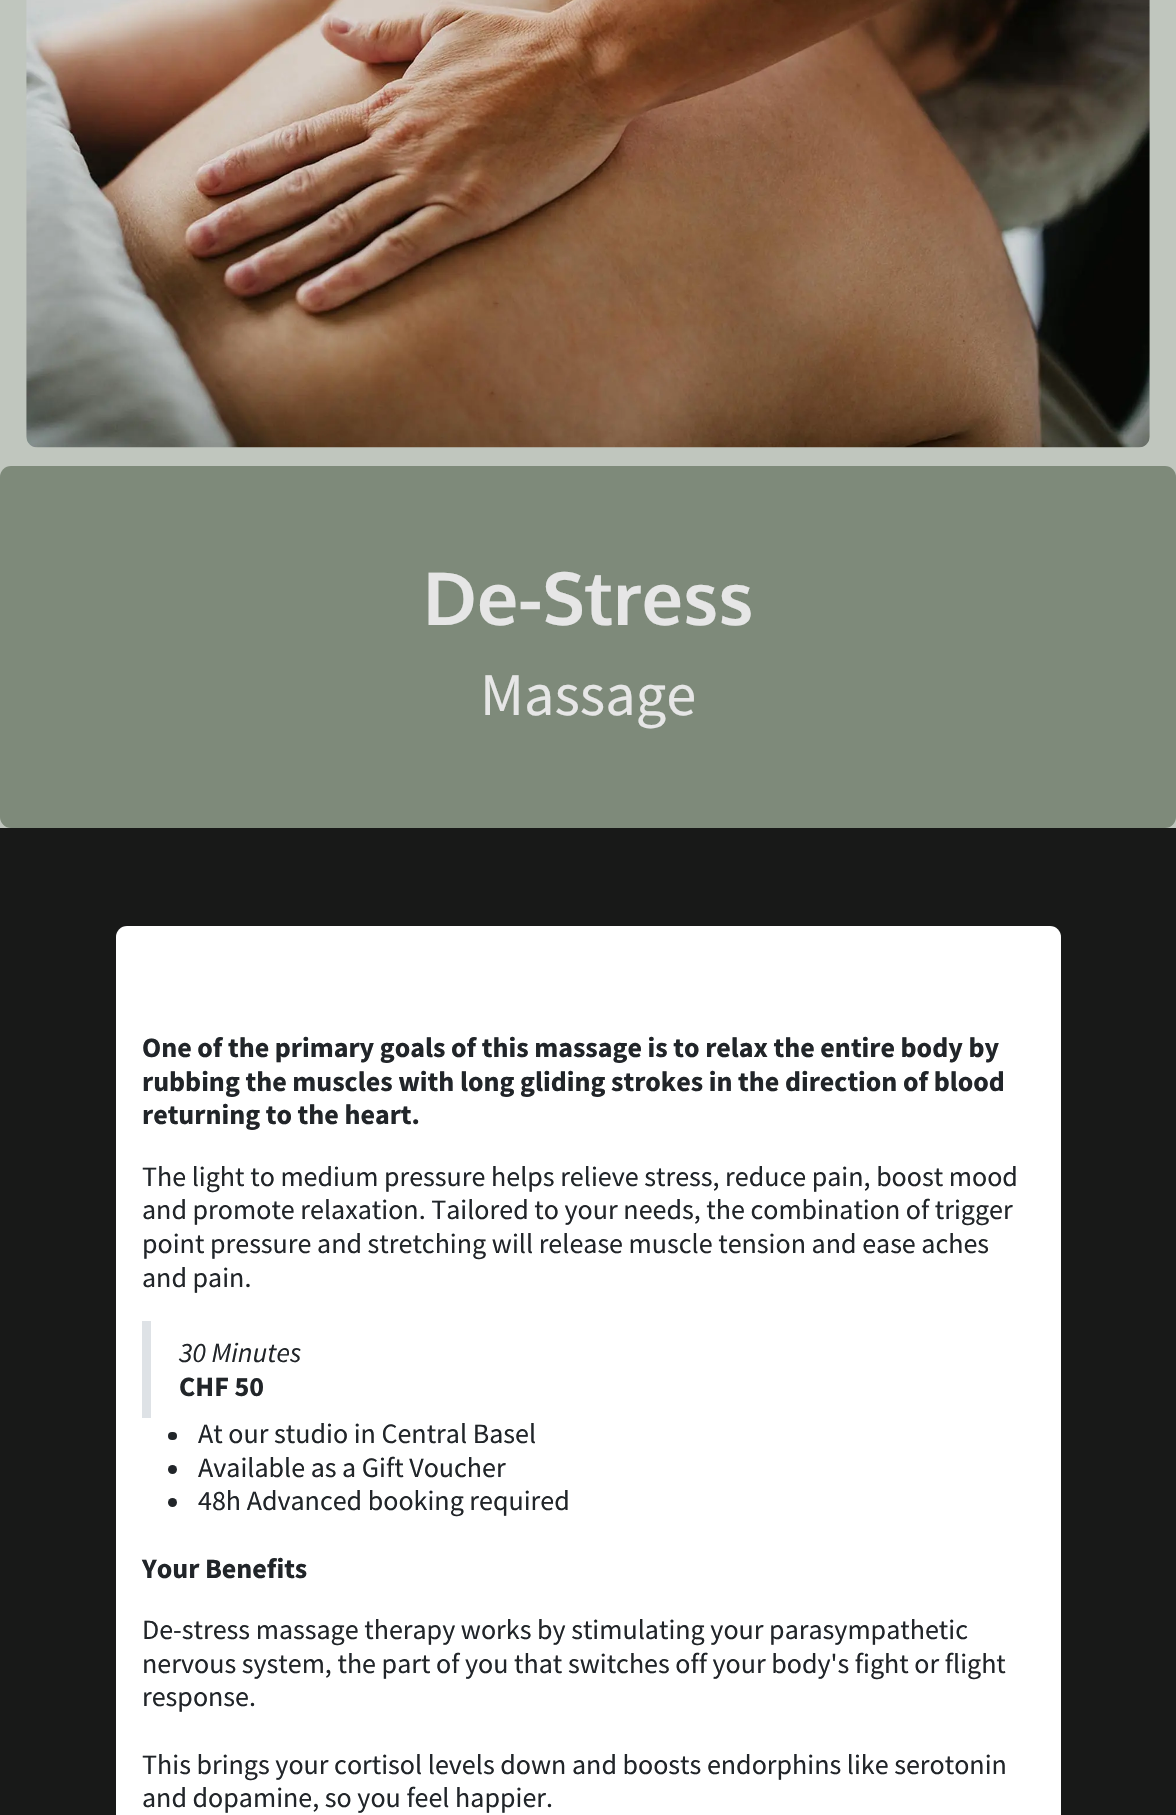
#include "include/core/SkBlurTypes.h"
#include "include/core/SkCanvas.h"
#include "include/core/SkData.h"
#include "include/core/SkFont.h"
#include "include/core/SkFontMgr.h"
#include "include/core/SkImage.h"
#include "include/core/SkMaskFilter.h"
#include "include/core/SkPaint.h"
#include "include/core/SkPathBuilder.h"
#include "include/core/SkTextBlob.h"
#include "include/effects/SkDashPathEffect.h"
#include "include/effects/SkGradientShader.h"
#include "include/utils/SkParsePath.h"

extern sk_sp<SkFontMgr> fontMgr;

static SkFont font(const char* family, int weight, float size, bool italic = false) {
    SkFontStyle style(weight, SkFontStyle::kNormal_Width,
        italic ? SkFontStyle::kItalic_Slant : SkFontStyle::kUpright_Slant);
    SkFont result(fontMgr->matchFamilyStyle(family, style), size);
    result.setSubpixel(true);
    return result;
}

static void drawLabel(SkCanvas* canvas, const char* s, float x, float y, const SkFont& font, SkColor color) {
    SkPaint ink(SkColor4f::FromColor(color));
    ink.setAntiAlias(true);
    canvas->drawString(s, x, y, font, ink);
}

static void fillRect(SkCanvas* canvas, float x, float y, float w, float h, SkColor color) {
    SkPaint ink(SkColor4f::FromColor(color));
    ink.setAntiAlias(true);
    canvas->drawRect(SkRect::MakeXYWH(x, y, w, h), ink);
}

static void fillRRect(SkCanvas* canvas, float x, float y, float w, float h, float radius, SkColor color) {
    SkPaint ink(SkColor4f::FromColor(color));
    ink.setAntiAlias(true);
    canvas->drawRoundRect(SkRect::MakeXYWH(x, y, w, h), radius, radius, ink);
}

static void drawPhoto(SkCanvas* canvas, const char* path, float x, float y, float w, float h) {
    auto image = SkImages::DeferredFromEncodedData(SkData::MakeFromFileName(path));
    canvas->drawImageRect(image, SkRect::MakeXYWH(x, y, w, h), SkSamplingOptions());
}

void draw(SkCanvas* canvas) {
    SkPaint paint;
    paint.setAntiAlias(true);
    canvas->clear(0xFFC0C6BE);
    drawPhoto(canvas, "assets/img1.png", 26, 0, 1124, 448);
    fillRRect(canvas, 0, 466, 1176, 362, 11, 0xFF7E8A7A);
    SkFont font1 = font("Oxygen", 700, 73);
    drawLabel(canvas, "De-Stress", 423, 625, font1, 0xFFE6E6E6);
    SkFont font2 = font("Source Sans Pro", 400, 60.5f);
    drawLabel(canvas, "Massage", 480, 715, font2, 0xFFE6E6E6);
    fillRect(canvas, 0, 828, 1176, 987, 0xFF181918);
    fillRRect(canvas, 116, 926, 945, 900, 11, 0xFFFFFFFF);
    SkFont font3 = font("Source Sans Pro", 700, 28);
    drawLabel(canvas, "One of the primary goals of this massage is to relax the entire body by", 142, 1057, font3, 0xFF212529);
    drawLabel(canvas, "rubbing the muscles with long gliding strokes in the direction of blood", 142, 1091, font3, 0xFF212529);
    drawLabel(canvas, "returning to the heart.", 142, 1124, font3, 0xFF212529);
    SkFont font4 = font("Source Sans Pro", 400, 28);
    drawLabel(canvas, "The light to medium pressure helps relieve stress, reduce pain, boost mood", 142, 1186, font4, 0xFF212529);
    drawLabel(canvas, "and promote relaxation. Tailored to your needs, the combination of trigger", 142, 1219, font4, 0xFF212529);
    drawLabel(canvas, "point pressure and stretching will release muscle tension and ease aches", 142, 1253, font4, 0xFF212529);
    drawLabel(canvas, "and pain.", 142, 1287, font4, 0xFF212529);
    fillRect(canvas, 142, 1321, 9, 97, 0xFFDEE2E6);
    SkFont font5 = font("Source Sans Pro", 400, 28, true);
    drawLabel(canvas, "30 Minutes", 179, 1362, font5, 0xFF212529);
    drawLabel(canvas, "CHF 50", 179, 1396, font3, 0xFF212529);
    fillRRect(canvas, 168, 1432, 9, 8, 4, 0xFF212529);
    drawLabel(canvas, "At our studio in Central Basel", 198, 1443, font4, 0xFF212529);
    paint.setColor(0xFF212529);
    canvas->drawCircle(172.5f, 1469.5f, 4.5f, paint);
    drawLabel(canvas, "Available as a Gift Voucher", 198, 1477, font4, 0xFF212529);
    canvas->drawCircle(172.5f, 1502.5f, 4.5f, paint);
    drawLabel(canvas, "48h Advanced booking required", 198, 1510, font4, 0xFF212529);
    drawLabel(canvas, "Your Benefits", 142, 1578, font3, 0xFF212529);
    drawLabel(canvas, "De-stress massage therapy works by stimulating your parasympathetic", 142, 1639, font4, 0xFF212529);
    drawLabel(canvas, "nervous system, the part of you that switches off your body's fight or flight", 142, 1673, font4, 0xFF212529);
    drawLabel(canvas, "response.", 142, 1706, font4, 0xFF212529);
    drawLabel(canvas, "This brings your cortisol levels down and boosts endorphins like serotonin", 142, 1774, font4, 0xFF212529);
    drawLabel(canvas, "and dopamine, so you feel happier.", 142, 1807, font4, 0xFF212529);
}
